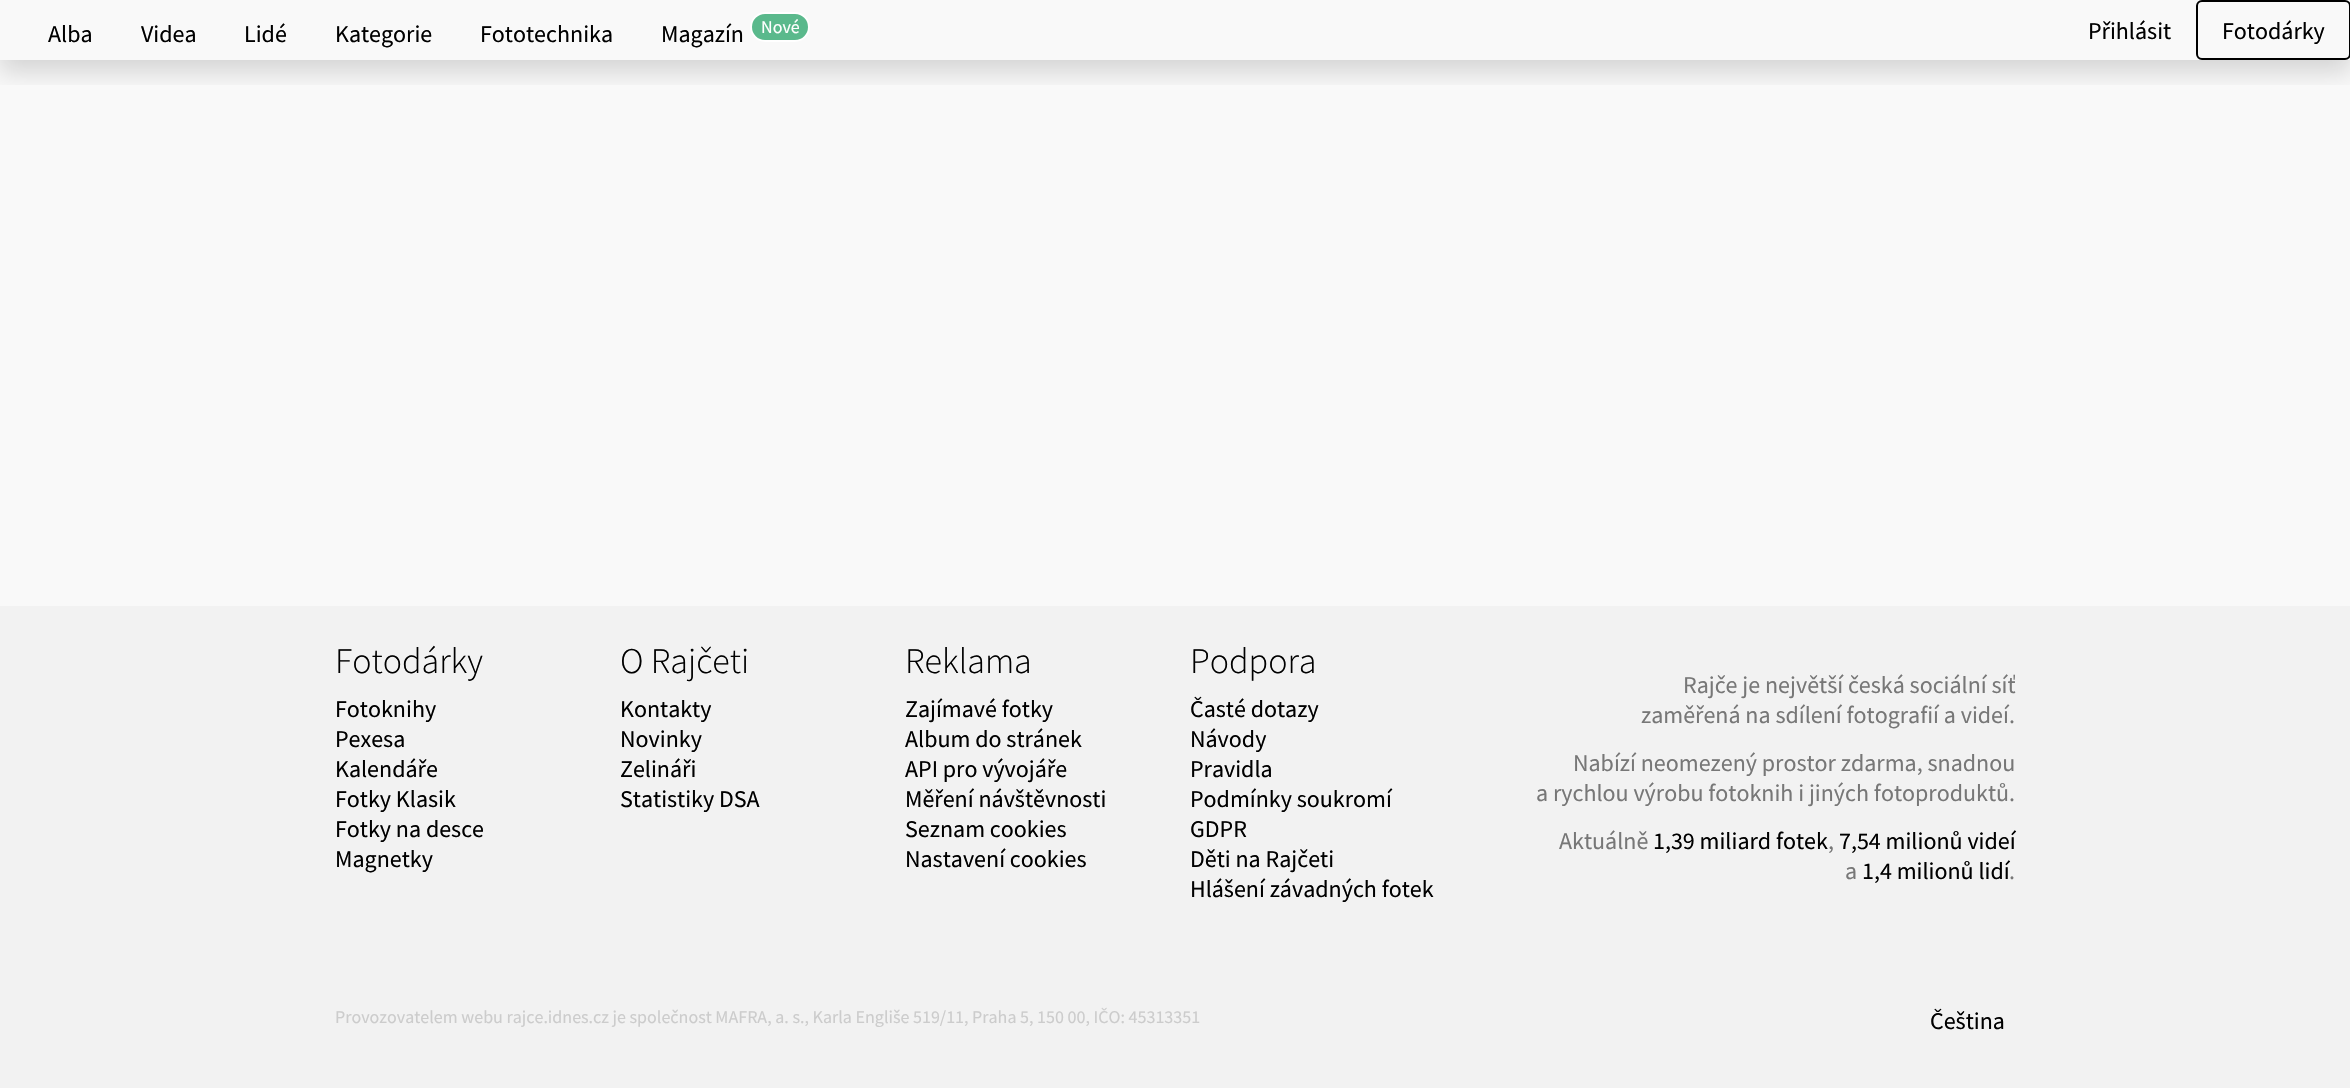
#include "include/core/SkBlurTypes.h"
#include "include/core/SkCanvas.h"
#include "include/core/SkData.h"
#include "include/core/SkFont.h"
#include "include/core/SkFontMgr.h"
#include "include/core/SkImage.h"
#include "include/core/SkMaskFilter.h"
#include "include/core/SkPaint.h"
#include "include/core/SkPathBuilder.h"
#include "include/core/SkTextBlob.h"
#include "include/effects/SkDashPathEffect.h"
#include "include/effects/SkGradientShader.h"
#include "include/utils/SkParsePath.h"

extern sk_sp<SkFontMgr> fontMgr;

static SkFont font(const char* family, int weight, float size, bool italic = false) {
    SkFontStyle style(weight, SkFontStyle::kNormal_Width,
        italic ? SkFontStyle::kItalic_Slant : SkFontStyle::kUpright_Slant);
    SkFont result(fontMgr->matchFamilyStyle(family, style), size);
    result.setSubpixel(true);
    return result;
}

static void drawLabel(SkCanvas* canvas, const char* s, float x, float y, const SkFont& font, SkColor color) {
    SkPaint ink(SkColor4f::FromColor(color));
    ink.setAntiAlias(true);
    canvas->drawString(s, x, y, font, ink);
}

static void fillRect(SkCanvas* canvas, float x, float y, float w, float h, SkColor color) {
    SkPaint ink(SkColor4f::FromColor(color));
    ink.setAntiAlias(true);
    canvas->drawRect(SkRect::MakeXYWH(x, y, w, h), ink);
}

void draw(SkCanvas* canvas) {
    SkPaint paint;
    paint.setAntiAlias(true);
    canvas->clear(0xFFF9F9F9);
    canvas->save();
    canvas->clipRect(SkRect::MakeXYWH(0, 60, 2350, 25));
    paint.setColor(0x26000000);
    paint.setMaskFilter(SkMaskFilter::MakeBlur(kNormal_SkBlurStyle, 12));
    canvas->drawRect(SkRect::MakeXYWH(0, 12, 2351, 60), paint);
    paint.setMaskFilter(nullptr);
    canvas->restore();
    SkFont font1 = font("Source Sans Pro", 400, 24);
    drawLabel(canvas, "Alba", 48, 42, font1, 0xFF000000);
    drawLabel(canvas, "Videa", 141, 42, font1, 0xFF000000);
    drawLabel(canvas, "Lidé", 244, 42, font1, 0xFF000000);
    drawLabel(canvas, "Kategorie", 335, 42, font1, 0xFF000000);
    drawLabel(canvas, "Fototechnika", 480, 42, font1, 0xFF000000);
    drawLabel(canvas, "Magazín", 661, 42, font1, 0xFF000000);
    paint.setColor(0xFF5AB98C);
    canvas->drawRoundRect(SkRect::MakeXYWH(751, 13, 58, 28), 14, 14, paint);
    paint.setStroke(true);
    paint.setStrokeWidth(2);
    paint.setColor(0xFFFFFFFF);
    canvas->drawRoundRect(SkRect::MakeXYWH(751, 13, 58, 28), 14, 14, paint);
    SkFont font2 = font("Source Sans Pro", 400, 18);
    drawLabel(canvas, "Nové", 761, 33, font2, 0xFFFFFFFF);
    drawLabel(canvas, "Přihlásit", 2088, 39, font1, 0xFF000000);
    paint.setColor(0xFF000000);
    canvas->drawRoundRect(SkRect::MakeXYWH(2197, 1, 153, 58), 5, 5, paint);
    drawLabel(canvas, "Fotodárky", 2222, 39, font1, 0xFF000000);
    fillRect(canvas, 0, 606, 2350, 482, 0xFFF2F2F2);
    SkFont font3 = font("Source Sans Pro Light", 300, 36);
    drawLabel(canvas, "Fotodárky", 335, 673, font3, 0xFF000000);
    drawLabel(canvas, "Fotoknihy", 335, 717, font1, 0xFF000000);
    drawLabel(canvas, "Pexesa", 335, 747, font1, 0xFF000000);
    drawLabel(canvas, "Kalendáře", 335, 777, font1, 0xFF000000);
    drawLabel(canvas, "Fotky Klasik", 335, 807, font1, 0xFF000000);
    drawLabel(canvas, "Fotky na desce", 335, 837, font1, 0xFF000000);
    drawLabel(canvas, "Magnetky", 335, 867, font1, 0xFF000000);
    drawLabel(canvas, "O Rajčeti", 620, 673, font3, 0xFF000000);
    drawLabel(canvas, "Kontakty", 620, 717, font1, 0xFF000000);
    drawLabel(canvas, "Novinky", 620, 747, font1, 0xFF000000);
    drawLabel(canvas, "Zelináři", 620, 777, font1, 0xFF000000);
    drawLabel(canvas, "Statistiky DSA", 620, 807, font1, 0xFF000000);
    drawLabel(canvas, "Reklama", 905, 673, font3, 0xFF000000);
    drawLabel(canvas, "Zajímavé fotky", 905, 717, font1, 0xFF000000);
    drawLabel(canvas, "Album do stránek", 905, 747, font1, 0xFF000000);
    drawLabel(canvas, "API pro vývojáře", 905, 777, font1, 0xFF000000);
    drawLabel(canvas, "Měření návštěvnosti", 905, 807, font1, 0xFF000000);
    drawLabel(canvas, "Seznam cookies", 905, 837, font1, 0xFF000000);
    drawLabel(canvas, "Nastavení cookies", 905, 867, font1, 0xFF000000);
    drawLabel(canvas, "Podpora", 1190, 673, font3, 0xFF000000);
    drawLabel(canvas, "Časté dotazy", 1190, 717, font1, 0xFF000000);
    drawLabel(canvas, "Návody", 1190, 747, font1, 0xFF000000);
    drawLabel(canvas, "Pravidla", 1190, 777, font1, 0xFF000000);
    drawLabel(canvas, "Podmínky soukromí", 1190, 807, font1, 0xFF000000);
    drawLabel(canvas, "GDPR", 1190, 837, font1, 0xFF000000);
    drawLabel(canvas, "Děti na Rajčeti", 1190, 867, font1, 0xFF000000);
    drawLabel(canvas, "Hlášení závadných fotek", 1190, 897, font1, 0xFF000000);
    drawLabel(canvas, "Rajče je největší česká sociální síť", 1683, 693, font1, 0xFF777777);
    drawLabel(canvas, "zaměřená na sdílení fotografií a videí.", 1641, 723, font1, 0xFF777777);
    drawLabel(canvas, "Nabízí neomezený prostor zdarma, snadnou", 1573, 771, font1, 0xFF777777);
    drawLabel(canvas, "a rychlou výrobu fotoknih i jiných fotoproduktů.", 1536, 801, font1, 0xFF777777);
    drawLabel(canvas, "Aktuálně", 1559, 849, font1, 0xFF777777);
    drawLabel(canvas, "1,39 miliard fotek", 1653, 849, font1, 0xFF000000);
    drawLabel(canvas, ",", 1828, 849, font1, 0xFF777777);
    drawLabel(canvas, "7,54 milionů videí", 1839, 849, font1, 0xFF000000);
    drawLabel(canvas, "a", 1845, 879, font1, 0xFF777777);
    drawLabel(canvas, "1,4 milionů lidí", 1862, 879, font1, 0xFF000000);
    drawLabel(canvas, ".", 2009, 879, font1, 0xFF777777);
    drawLabel(canvas, "Provozovatelem webu rajce.idnes.cz je společnost MAFRA, a. s., Karla Engliše 519/11, Praha 5, 150 00, IČO: 45313351", 335, 1023, font2, 0xFFCCCCCC);
    drawLabel(canvas, "Čeština", 1930, 1029, font1, 0xFF000000);
}
